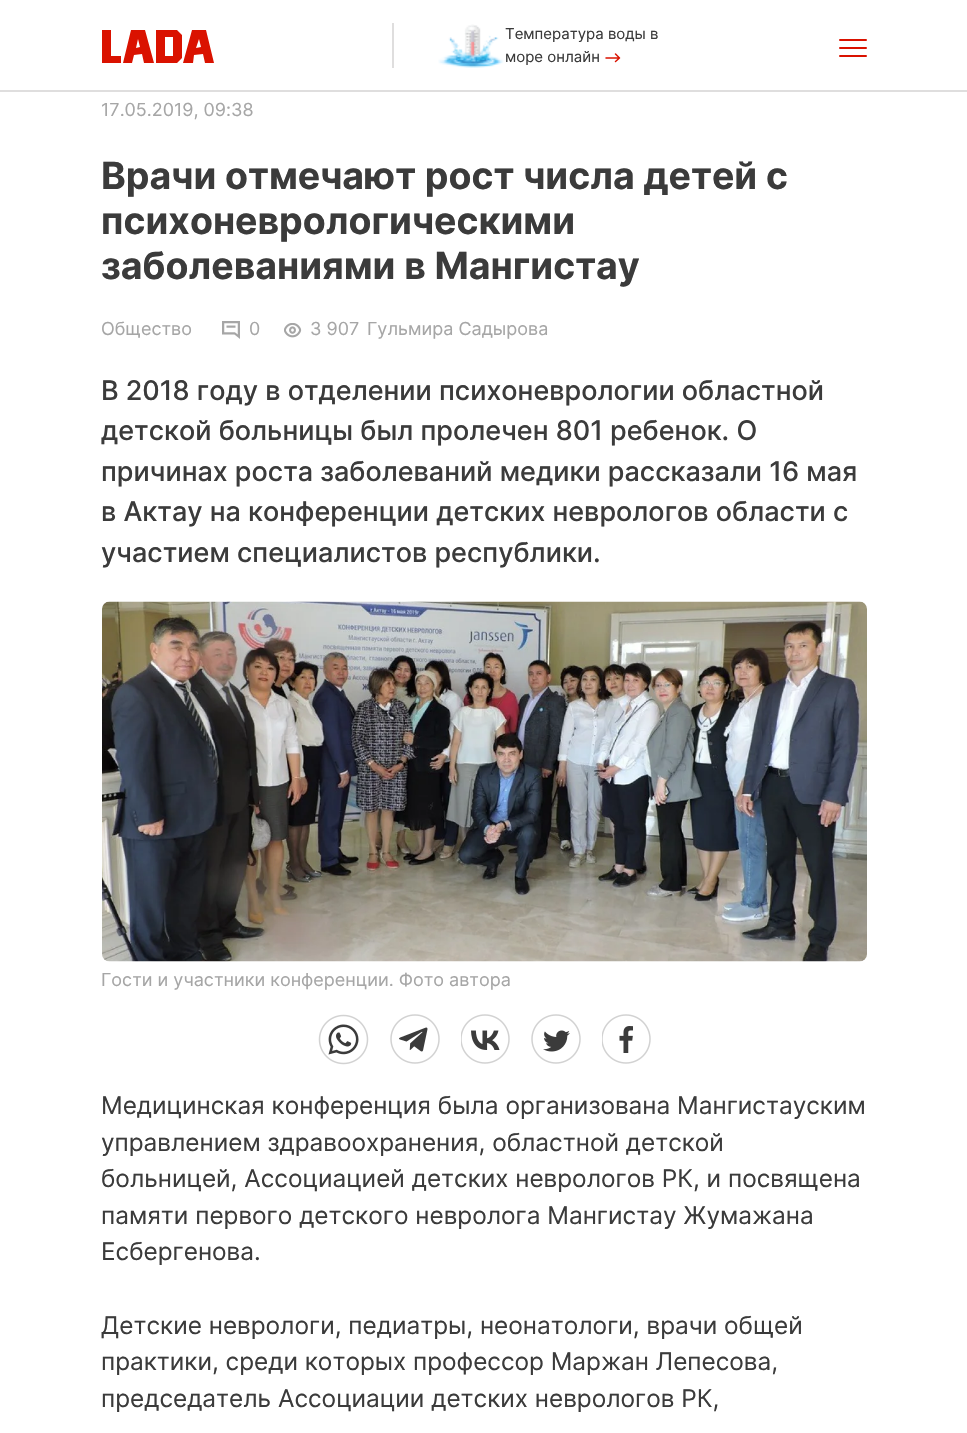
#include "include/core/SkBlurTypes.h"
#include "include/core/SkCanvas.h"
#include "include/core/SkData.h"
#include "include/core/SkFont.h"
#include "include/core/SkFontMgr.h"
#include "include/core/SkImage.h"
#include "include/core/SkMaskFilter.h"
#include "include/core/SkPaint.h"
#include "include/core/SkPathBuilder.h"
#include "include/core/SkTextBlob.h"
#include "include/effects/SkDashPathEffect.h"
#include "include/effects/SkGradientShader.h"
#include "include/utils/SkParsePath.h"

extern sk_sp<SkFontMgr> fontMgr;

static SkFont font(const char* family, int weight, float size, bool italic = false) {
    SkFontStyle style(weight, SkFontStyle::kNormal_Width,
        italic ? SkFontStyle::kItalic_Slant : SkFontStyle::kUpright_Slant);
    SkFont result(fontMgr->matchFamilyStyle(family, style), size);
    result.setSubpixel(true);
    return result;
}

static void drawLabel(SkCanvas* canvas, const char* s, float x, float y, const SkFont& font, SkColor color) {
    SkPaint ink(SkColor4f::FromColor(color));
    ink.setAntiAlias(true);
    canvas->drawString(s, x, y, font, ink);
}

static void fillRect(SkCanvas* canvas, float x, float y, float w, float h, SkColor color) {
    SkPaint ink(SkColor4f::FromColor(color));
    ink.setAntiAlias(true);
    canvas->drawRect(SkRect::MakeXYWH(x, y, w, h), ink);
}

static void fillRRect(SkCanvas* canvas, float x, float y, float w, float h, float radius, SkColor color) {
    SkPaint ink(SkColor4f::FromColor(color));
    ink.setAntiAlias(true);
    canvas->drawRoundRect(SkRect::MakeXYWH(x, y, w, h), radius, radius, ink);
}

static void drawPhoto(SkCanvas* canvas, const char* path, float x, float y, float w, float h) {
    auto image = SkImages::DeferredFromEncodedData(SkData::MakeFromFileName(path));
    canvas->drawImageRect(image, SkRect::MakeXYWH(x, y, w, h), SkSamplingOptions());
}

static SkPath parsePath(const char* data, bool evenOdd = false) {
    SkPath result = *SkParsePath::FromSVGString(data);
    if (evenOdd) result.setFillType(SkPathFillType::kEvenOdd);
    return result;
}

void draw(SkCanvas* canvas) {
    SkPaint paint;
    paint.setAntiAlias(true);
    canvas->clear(0xFFFFFFFF);
    fillRect(canvas, 0, 90, 967, 2, 0xFFDFDEDE);
    paint.setColor(0xFFDA1200);
    canvas->drawPath(parsePath("M102 30H111V56H121V63H102ZM156 30H177L182 35V58L177 63H156ZM165 56H173V37H165ZM145 30H131L123 63H132L134 55L142 54L144 63H154ZM136 48L138 39L140 47ZM192 30H206L214 63H205L203 54L194 55L193 63H183ZM199 39L196 48L201 47Z", true), paint);
    fillRect(canvas, 392, 23, 2, 45, 0xFFDFDEDE);
    drawPhoto(canvas, "assets/img1.png", 438, 24, 66, 44);
    SkFont font1 = font("Inter", 400, 15);
    drawLabel(canvas, "Температура воды в", 505, 39, font1, 0xFF3B3B3B);
    drawLabel(canvas, "море онлайн", 505, 62, font1, 0xFF3B3B3B);
    paint.setStroke(true);
    paint.setStrokeWidth(1.5f);
    paint.setStrokeCap(SkPaint::kRound_Cap);
    paint.setStrokeJoin(SkPaint::kRound_Join);
    canvas->drawPath(parsePath("M606 58H619.5M619.5 58L615.5 54M619.5 58L615.5 61.5"), paint);
    fillRRect(canvas, 839, 39, 28, 2, 1, 0xFFDA1200);
    fillRRect(canvas, 839, 47, 28, 2, 1, 0xFFDA1200);
    fillRRect(canvas, 839, 55, 28, 2, 1, 0xFFDA1200);
    SkFont font2 = font("Inter", 400, 18);
    drawLabel(canvas, "17.05.2019, 09:38", 101, 116, font2, 0xFFA6A6A6);
    SkFont font3 = font("Inter", 700, 37.5f);
    drawLabel(canvas, "Врачи отмечают рост числа детей с", 101, 189, font3, 0xFF3B3B3B);
    drawLabel(canvas, "психоневрологическими", 101, 234, font3, 0xFF3B3B3B);
    drawLabel(canvas, "заболеваниями в Мангистау", 101, 279, font3, 0xFF3B3B3B);
    drawLabel(canvas, "Общество", 101, 335, font2, 0xFFA6A6A6);
    drawPhoto(canvas, "assets/img2.png", 222, 321, 18, 18);
    drawLabel(canvas, "0", 249, 335, font2, 0xFFA6A6A6);
    drawPhoto(canvas, "assets/img3.png", 284, 323, 18, 15);
    drawLabel(canvas, "3 907", 310, 335, font2, 0xFFA6A6A6);
    drawLabel(canvas, "Гульмира Садырова", 367, 335, font2, 0xFFA6A6A6);
    SkFont font4 = font("Inter", 500, 27);
    drawLabel(canvas, "В 2018 году в отделении психоневрологии областной", 101, 400, font4, 0xFF3B3B3B);
    drawLabel(canvas, "детской больницы был пролечен 801 ребенок. О", 101, 440, font4, 0xFF3B3B3B);
    drawLabel(canvas, "причинах роста заболеваний медики рассказали 16 мая", 101, 481, font4, 0xFF3B3B3B);
    drawLabel(canvas, "в Актау на конференции детских неврологов области с", 101, 521, font4, 0xFF3B3B3B);
    drawLabel(canvas, "участием специалистов республики.", 101, 562, font4, 0xFF3B3B3B);
    drawPhoto(canvas, "assets/img4.png", 102, 601, 765, 361);
    drawLabel(canvas, "Гости и участники конференции. Фото автора", 101, 986, font2, 0xFFA6A6A6);
    drawPhoto(canvas, "assets/img5.png", 318, 1014, 51, 51);
    drawPhoto(canvas, "assets/img6.png", 390, 1014, 50, 50);
    drawPhoto(canvas, "assets/img7.png", 461, 1014, 49, 50);
    drawPhoto(canvas, "assets/img8.png", 531, 1014, 50, 50);
    drawPhoto(canvas, "assets/img9.png", 602, 1014, 49, 50);
    SkFont font5 = font("Inter", 400, 24.35f);
    drawLabel(canvas, "Медицинская конференция была организована Мангистауским", 101, 1114, font5, 0xFF3B3B3B);
    drawLabel(canvas, "управлением здравоохранения, областной детской", 101, 1151, font5, 0xFF3B3B3B);
    drawLabel(canvas, "больницей, Ассоциацией детских неврологов РК, и посвящена", 101, 1187, font5, 0xFF3B3B3B);
    drawLabel(canvas, "памяти первого детского невролога Мангистау Жумажана", 101, 1224, font5, 0xFF3B3B3B);
    drawLabel(canvas, "Есбергенова.", 101, 1260, font5, 0xFF3B3B3B);
    drawLabel(canvas, "Детские неврологи, педиатры, неонатологи, врачи общей", 101, 1334, font5, 0xFF3B3B3B);
    drawLabel(canvas, "практики, среди которых профессор Маржан Лепесова,", 101, 1370, font5, 0xFF3B3B3B);
    drawLabel(canvas, "председатель Ассоциации детских неврологов РК,", 101, 1407, font5, 0xFF3B3B3B);
}
